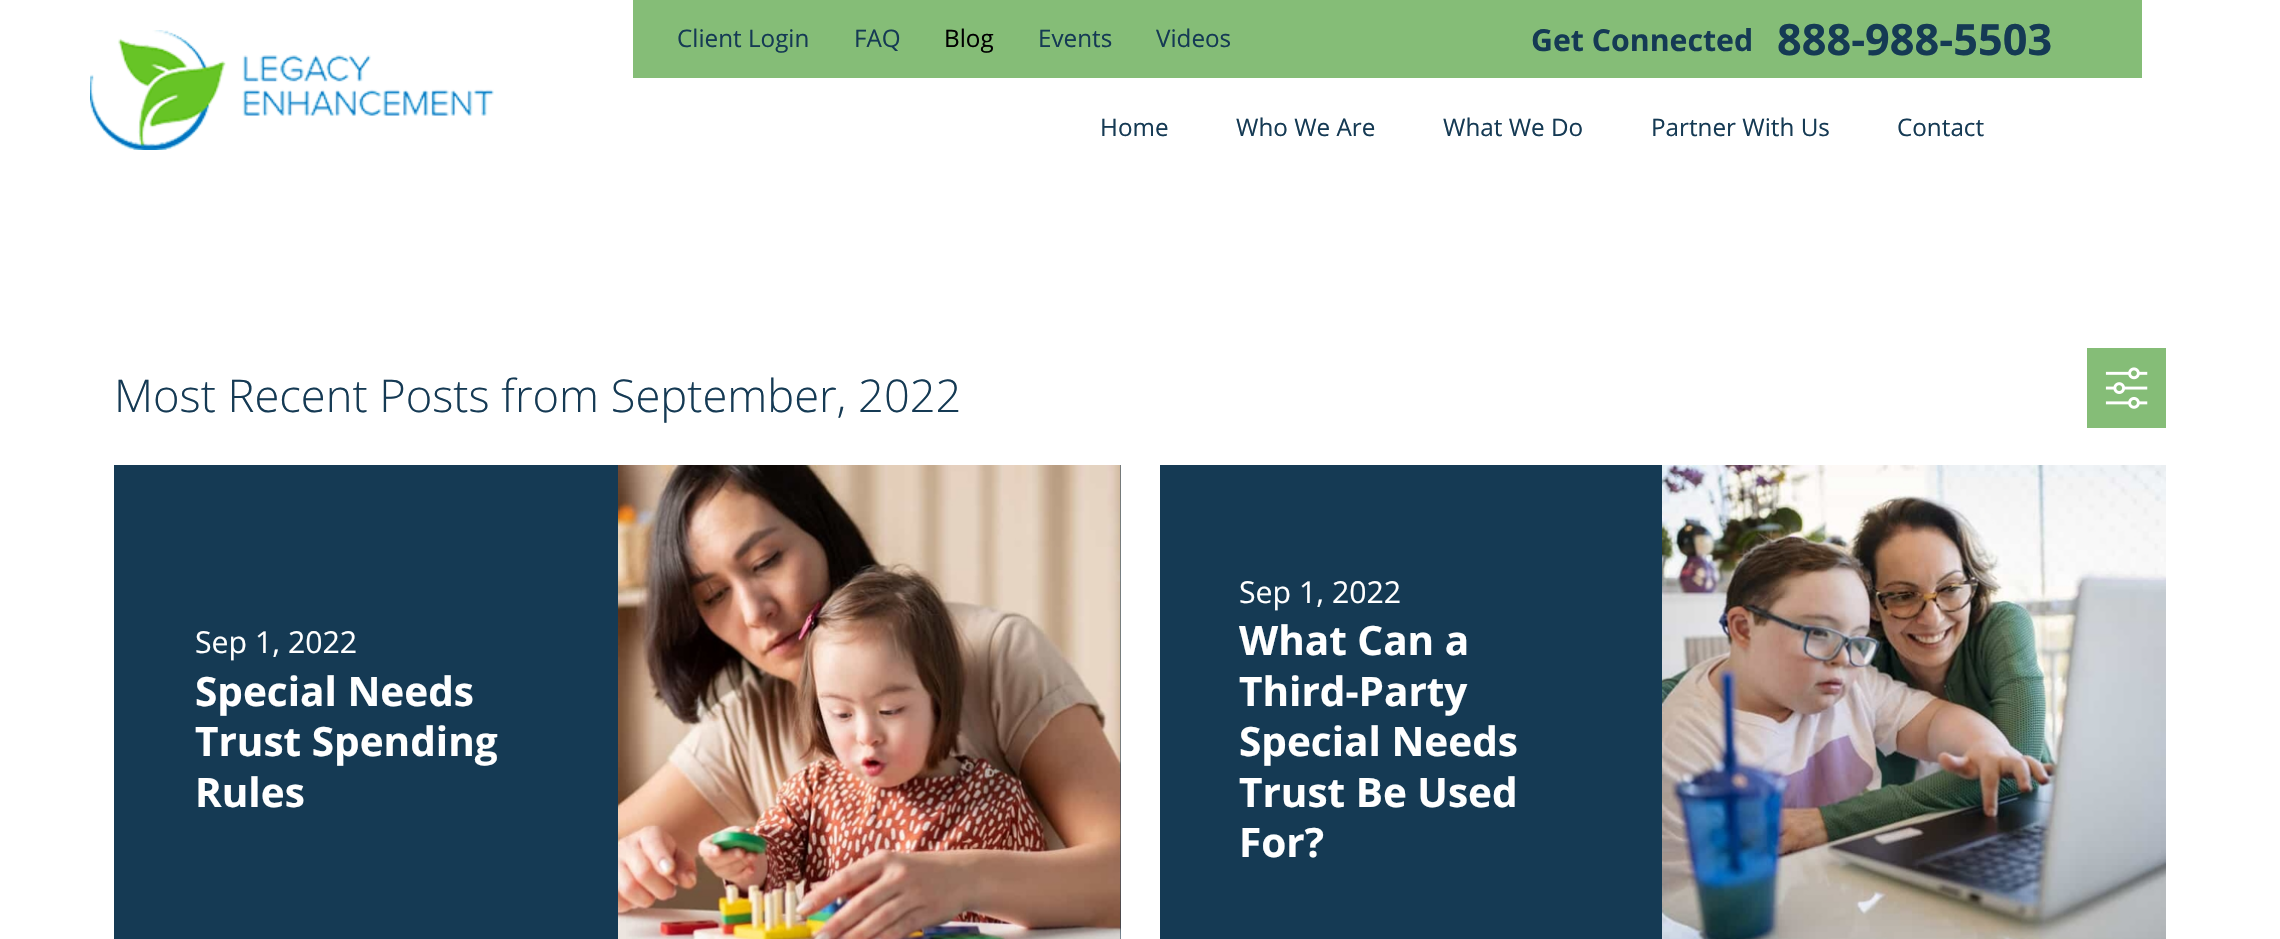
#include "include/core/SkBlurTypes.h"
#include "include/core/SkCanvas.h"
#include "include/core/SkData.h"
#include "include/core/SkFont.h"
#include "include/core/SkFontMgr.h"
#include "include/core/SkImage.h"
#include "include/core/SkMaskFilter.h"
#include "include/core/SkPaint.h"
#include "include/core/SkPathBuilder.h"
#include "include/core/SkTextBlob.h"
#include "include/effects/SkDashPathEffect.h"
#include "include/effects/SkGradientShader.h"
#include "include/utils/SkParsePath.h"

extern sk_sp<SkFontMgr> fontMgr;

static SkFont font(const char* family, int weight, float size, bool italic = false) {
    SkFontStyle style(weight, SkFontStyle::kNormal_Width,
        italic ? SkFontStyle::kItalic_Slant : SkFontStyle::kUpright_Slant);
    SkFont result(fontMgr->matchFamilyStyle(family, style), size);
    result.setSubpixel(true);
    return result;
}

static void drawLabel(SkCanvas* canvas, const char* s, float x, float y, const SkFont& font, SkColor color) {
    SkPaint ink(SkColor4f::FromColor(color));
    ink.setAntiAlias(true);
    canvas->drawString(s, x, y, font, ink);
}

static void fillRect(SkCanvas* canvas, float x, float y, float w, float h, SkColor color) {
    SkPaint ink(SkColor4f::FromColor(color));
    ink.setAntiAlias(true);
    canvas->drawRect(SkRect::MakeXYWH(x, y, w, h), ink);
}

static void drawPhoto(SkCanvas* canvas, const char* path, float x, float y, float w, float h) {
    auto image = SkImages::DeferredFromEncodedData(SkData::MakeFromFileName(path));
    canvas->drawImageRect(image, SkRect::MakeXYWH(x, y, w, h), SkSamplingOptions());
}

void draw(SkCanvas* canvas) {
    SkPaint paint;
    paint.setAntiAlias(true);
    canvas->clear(0xFFFFFFFF);
    drawPhoto(canvas, "assets/img1.png", 90, 30, 404, 120);
    fillRect(canvas, 633, 0, 1509, 78, 0xFF85BD77);
    SkFont font1 = font("Open Sans", 400, 24.25f);
    drawLabel(canvas, "Client Login", 677, 47, font1, 0xFF153A54);
    drawLabel(canvas, "FAQ", 854, 47, font1, 0xFF153A54);
    drawLabel(canvas, "Blog", 944, 47, font1, 0xFF000000);
    drawLabel(canvas, "Events", 1038, 47, font1, 0xFF153A54);
    drawLabel(canvas, "Videos", 1156, 47, font1, 0xFF153A54);
    SkFont font2 = font("Open Sans", 700, 30.25f);
    drawLabel(canvas, "Get Connected", 1531, 51, font2, 0xFF153A54);
    SkFont font3 = font("Open Sans", 700, 43.25f);
    drawLabel(canvas, "888-988-5503", 1777, 55, font3, 0xFF153A54);
    drawLabel(canvas, "Home", 1100, 136, font1, 0xFF153A54);
    drawLabel(canvas, "Who We Are", 1236, 136, font1, 0xFF153A54);
    drawLabel(canvas, "What We Do", 1443, 136, font1, 0xFF153A54);
    drawLabel(canvas, "Partner With Us", 1651, 136, font1, 0xFF153A54);
    drawLabel(canvas, "Contact", 1897, 136, font1, 0xFF153A54);
    SkFont font4 = font("Open Sans", 300, 45.25f);
    drawLabel(canvas, "Most Recent Posts from September, 2022", 114, 412, font4, 0xFF153A54);
    fillRect(canvas, 2087, 348, 79, 80, 0xFF85BD77);
    drawPhoto(canvas, "assets/img2.png", 2105, 367, 43, 42);
    fillRect(canvas, 114, 465, 1007, 474, 0xFF153A54);
    SkFont font5 = font("Open Sans", 400, 30.25f);
    drawLabel(canvas, "Sep 1, 2022", 195, 653, font5, 0xFFFFFFFF);
    SkFont font6 = font("Open Sans", 700, 40.5f);
    drawLabel(canvas, "Special Needs", 195, 706, font6, 0xFFFFFFFF);
    drawLabel(canvas, "Trust Spending", 195, 756, font6, 0xFFFFFFFF);
    drawLabel(canvas, "Rules", 195, 807, font6, 0xFFFFFFFF);
    drawPhoto(canvas, "assets/img3.png", 618, 465, 503, 474);
    fillRect(canvas, 1160, 465, 502, 474, 0xFF153A54);
    drawPhoto(canvas, "assets/img4.png", 1662, 465, 504, 474);
    drawLabel(canvas, "Sep 1, 2022", 1239, 603, font5, 0xFFFFFFFF);
    drawLabel(canvas, "What Can a", 1239, 655, font6, 0xFFFFFFFF);
    drawLabel(canvas, "Third-Party", 1239, 706, font6, 0xFFFFFFFF);
    drawLabel(canvas, "Special Needs", 1239, 756, font6, 0xFFFFFFFF);
    drawLabel(canvas, "Trust Be Used", 1239, 807, font6, 0xFFFFFFFF);
    drawLabel(canvas, "For?", 1239, 857, font6, 0xFFFFFFFF);
}
